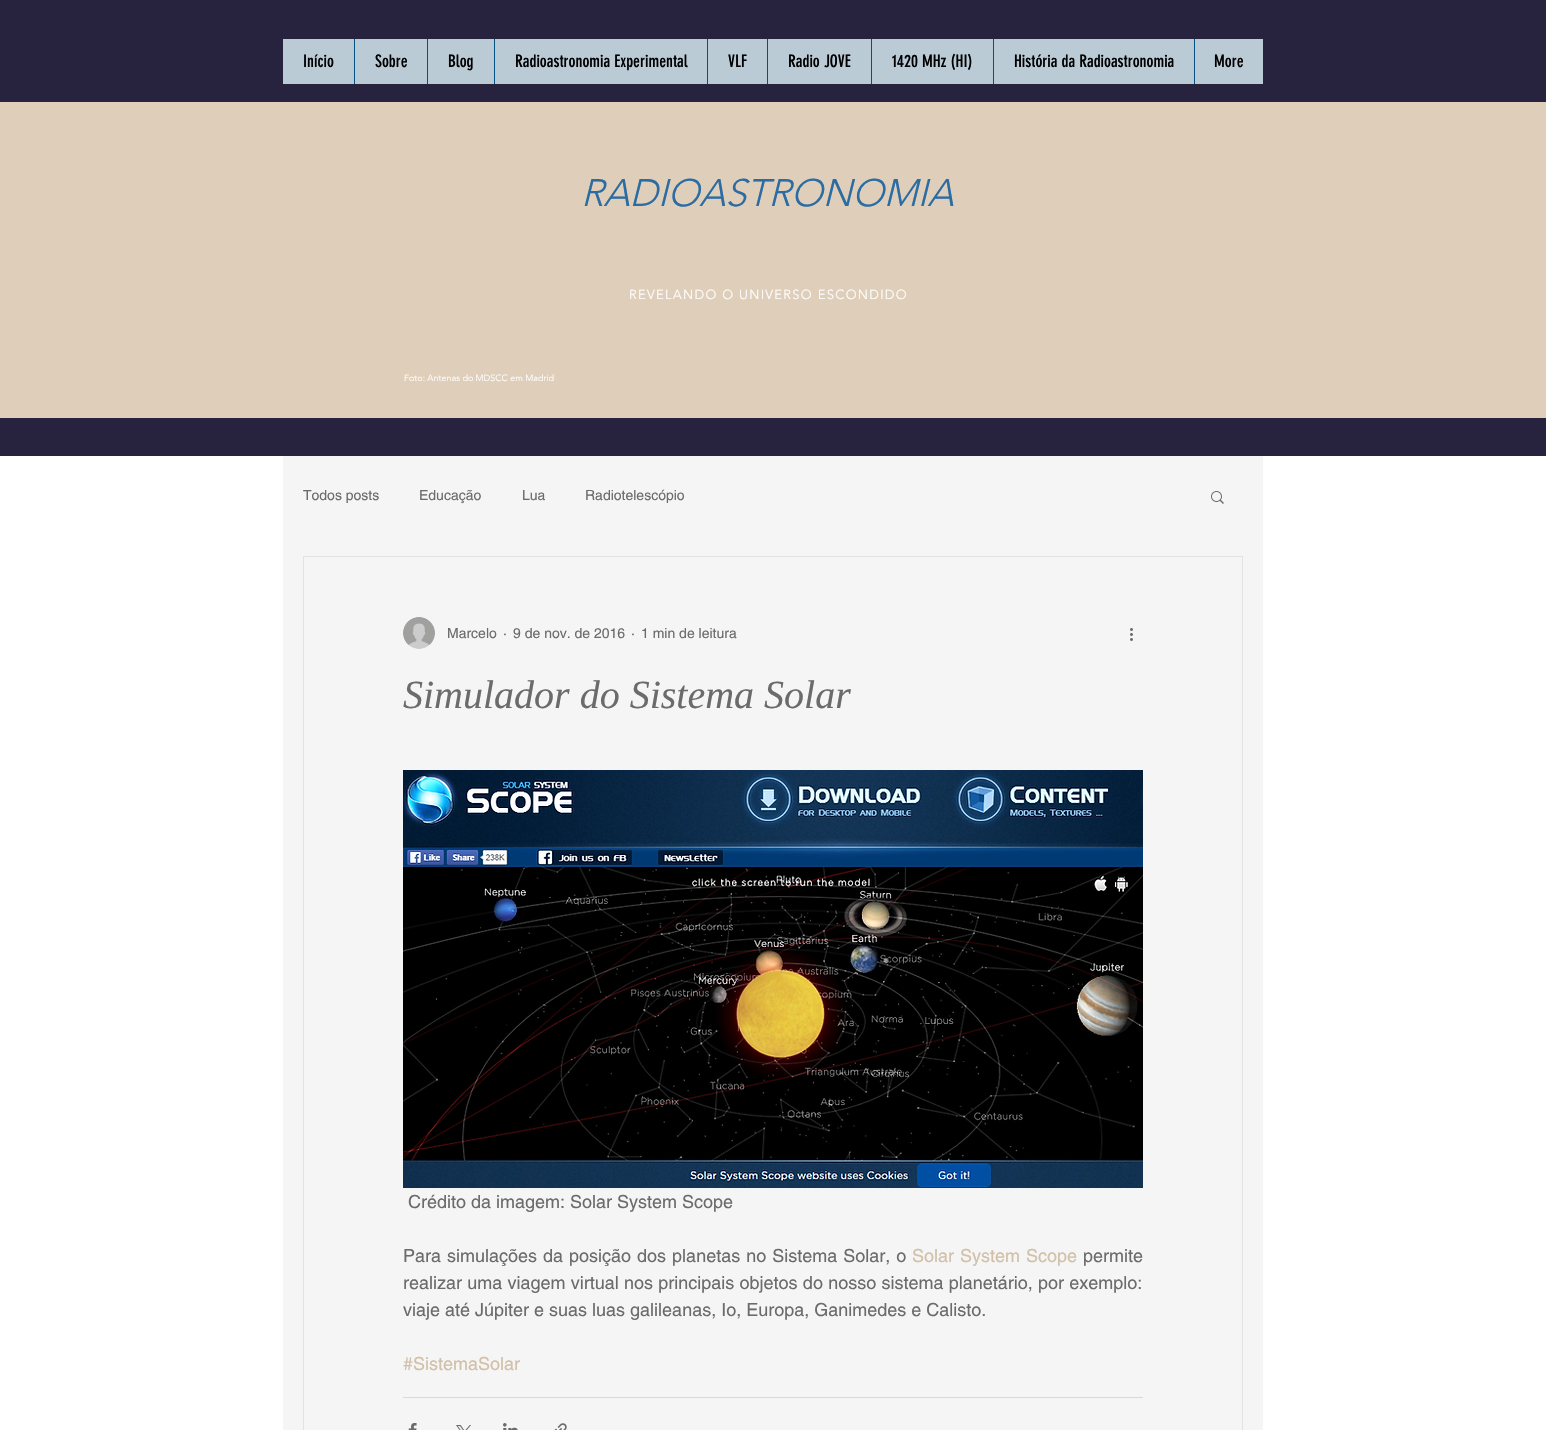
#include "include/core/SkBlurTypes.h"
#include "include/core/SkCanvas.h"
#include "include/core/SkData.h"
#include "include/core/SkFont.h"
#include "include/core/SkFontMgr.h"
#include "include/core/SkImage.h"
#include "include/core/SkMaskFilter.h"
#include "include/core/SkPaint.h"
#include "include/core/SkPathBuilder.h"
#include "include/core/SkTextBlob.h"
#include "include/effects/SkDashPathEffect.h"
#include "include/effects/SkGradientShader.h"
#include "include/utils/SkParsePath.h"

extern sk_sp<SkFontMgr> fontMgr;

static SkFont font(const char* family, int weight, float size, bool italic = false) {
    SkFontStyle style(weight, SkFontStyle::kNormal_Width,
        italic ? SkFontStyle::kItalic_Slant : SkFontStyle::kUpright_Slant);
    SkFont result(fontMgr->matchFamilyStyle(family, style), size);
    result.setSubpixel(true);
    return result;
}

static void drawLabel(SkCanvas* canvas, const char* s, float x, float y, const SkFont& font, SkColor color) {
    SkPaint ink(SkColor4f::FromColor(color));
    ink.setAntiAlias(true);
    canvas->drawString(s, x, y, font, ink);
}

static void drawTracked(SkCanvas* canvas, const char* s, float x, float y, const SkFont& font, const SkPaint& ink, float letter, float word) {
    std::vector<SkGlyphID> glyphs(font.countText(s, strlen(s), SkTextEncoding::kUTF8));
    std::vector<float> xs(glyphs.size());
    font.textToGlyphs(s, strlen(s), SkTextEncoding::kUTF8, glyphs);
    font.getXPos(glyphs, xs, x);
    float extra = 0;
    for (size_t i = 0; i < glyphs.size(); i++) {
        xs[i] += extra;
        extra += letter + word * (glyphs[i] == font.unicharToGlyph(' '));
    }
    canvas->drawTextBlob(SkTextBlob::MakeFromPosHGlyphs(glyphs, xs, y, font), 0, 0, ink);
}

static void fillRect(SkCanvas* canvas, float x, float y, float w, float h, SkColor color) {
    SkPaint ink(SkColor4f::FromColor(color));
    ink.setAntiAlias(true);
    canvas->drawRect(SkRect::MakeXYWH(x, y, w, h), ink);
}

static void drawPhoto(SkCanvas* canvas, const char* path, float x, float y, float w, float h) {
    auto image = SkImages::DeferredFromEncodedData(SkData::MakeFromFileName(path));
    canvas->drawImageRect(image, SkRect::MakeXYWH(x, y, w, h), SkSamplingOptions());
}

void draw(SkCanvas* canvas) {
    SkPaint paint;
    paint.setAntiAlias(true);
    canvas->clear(0xFFFFFFFF);
    fillRect(canvas, 0, 0, 1546, 456, 0xFF27223E);
    fillRect(canvas, 283, 39, 980, 45, 0xFFBACBD6);
    SkFont font1 = font("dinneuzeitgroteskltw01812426", 400, 17);
    drawLabel(canvas, "Início", 303, 67, font1, 0xFF000000);
    fillRect(canvas, 354, 39, 1, 45, 0xFF045184);
    drawLabel(canvas, "Sobre", 375, 67, font1, 0xFF000000);
    fillRect(canvas, 427, 39, 1, 45, 0xFF045184);
    drawLabel(canvas, "Blog", 448, 67, font1, 0xFF000000);
    fillRect(canvas, 494, 39, 1, 45, 0xFF045184);
    drawLabel(canvas, "Radioastronomia Experimental", 515, 67, font1, 0xFF000000);
    fillRect(canvas, 707, 39, 1, 45, 0xFF045184);
    drawLabel(canvas, "VLF", 728, 67, font1, 0xFF000000);
    fillRect(canvas, 767, 39, 1, 45, 0xFF045184);
    drawLabel(canvas, "Radio JOVE", 788, 67, font1, 0xFF000000);
    fillRect(canvas, 871, 39, 1, 45, 0xFF045184);
    drawLabel(canvas, "1420 MHz (HI)", 892, 67, font1, 0xFF000000);
    fillRect(canvas, 993, 39, 1, 45, 0xFF045184);
    drawLabel(canvas, "História da Radioastronomia", 1014, 67, font1, 0xFF000000);
    fillRect(canvas, 1194, 39, 1, 45, 0xFF045184);
    drawLabel(canvas, "More", 1214, 67, font1, 0xFF000000);
    fillRect(canvas, 0, 102, 1546, 316, 0xFFDFCFBA);
    SkFont font2 = font("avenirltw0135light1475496", 300, 38, true);
    drawLabel(canvas, "RADIOASTRONOMIA", 581, 206, font2, 0xFF2B6CA3);
    SkFont font3 = font("avenirltw0135light1475496", 300, 13);
    paint.setColor(0xFFFFFFFF);
    drawTracked(canvas, "REVELANDO O UNIVERSO ESCONDIDO", 629, 299, font3, paint, 1.3f, 0);
    SkFont font4 = font("avenirltw0135light1475496", 300, 9);
    drawLabel(canvas, "Foto: Antenas do MDSCC em Madrid", 404, 381, font4, 0xFFFFFFFF);
    fillRect(canvas, 283, 456, 980, 974, 0xFFF5F5F5);
    SkFont font5 = font("helvetica", 400, 14);
    drawLabel(canvas, "Todos posts", 303, 500, font5, 0xFF6B6B6B);
    drawLabel(canvas, "Educação", 419, 500, font5, 0xFF6B6B6B);
    drawLabel(canvas, "Lua", 522, 500, font5, 0xFF6B6B6B);
    drawLabel(canvas, "Radiotelescópio", 585, 500, font5, 0xFF6B6B6B);
    drawPhoto(canvas, "assets/img1.png", 1211, 491, 13, 13);
    paint.setStroke(true);
    paint.setStrokeWidth(1);
    paint.setColor(0xFFE2E2E2);
    canvas->drawRect(SkRect::MakeXYWH(303.5f, 556.5f, 939, 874), paint);
    drawPhoto(canvas, "assets/img2.png", 403, 617, 32, 32);
    drawLabel(canvas, "Marcelo", 447, 638, font5, 0xFF6B6B6B);
    drawLabel(canvas, "·", 503, 638, font5, 0xFF6B6B6B);
    drawLabel(canvas, "9 de nov. de 2016", 513, 638, font5, 0xFF6B6B6B);
    drawLabel(canvas, "·", 631, 638, font5, 0xFF6B6B6B);
    drawLabel(canvas, "1 min de leitura", 641, 638, font5, 0xFF6B6B6B);
    drawPhoto(canvas, "assets/img3.png", 1130, 628, 3, 13);
    SkFont font6 = font("Liberation Serif", 400, 40, true);
    drawLabel(canvas, "Simulador do Sistema Solar", 403, 708, font6, 0xFF6B6B6B);
    drawPhoto(canvas, "assets/img4.png", 403, 770, 740, 418);
    SkFont font7 = font("helvetica", 400, 18);
    drawLabel(canvas, "Crédito da imagem: Solar System Scope", 408, 1208, font7, 0xFF6B6B6B);
    paint.setStroke(false);
    paint.setColor(0xFF6B6B6B);
    drawTracked(canvas, "Para simulações da posição dos planetas no Sistema Solar, o", 403, 1262, font7, paint, 0, 1);
    paint.setColor(0xFFD2C0A8);
    drawTracked(canvas, "Solar System Scope", 912, 1262, font7, paint, 0, 1);
    drawLabel(canvas, "permite", 1083, 1262, font7, 0xFF6B6B6B);
    paint.setColor(0xFF6B6B6B);
    drawTracked(canvas, "realizar uma viagem virtual nos principais objetos do nosso sistema planetário, por exemplo:", 403, 1289, font7, paint, 0, 0.25f);
    drawLabel(canvas, "viaje até Júpiter e suas luas galileanas, Io, Europa, Ganimedes e Calisto.", 403, 1316, font7, 0xFF6B6B6B);
    drawLabel(canvas, "#SistemaSolar", 403, 1370, font7, 0xFFD2C0A8);
    fillRect(canvas, 403, 1397, 740, 1, 0xFFD9D9D9);
    drawPhoto(canvas, "assets/img5.png", 408, 1423, 9, 7);
    drawPhoto(canvas, "assets/img6.png", 456, 1425, 15, 5);
    drawPhoto(canvas, "assets/img7.png", 503, 1423, 15, 7);
    drawPhoto(canvas, "assets/img8.png", 554, 1423, 13, 7);
}
